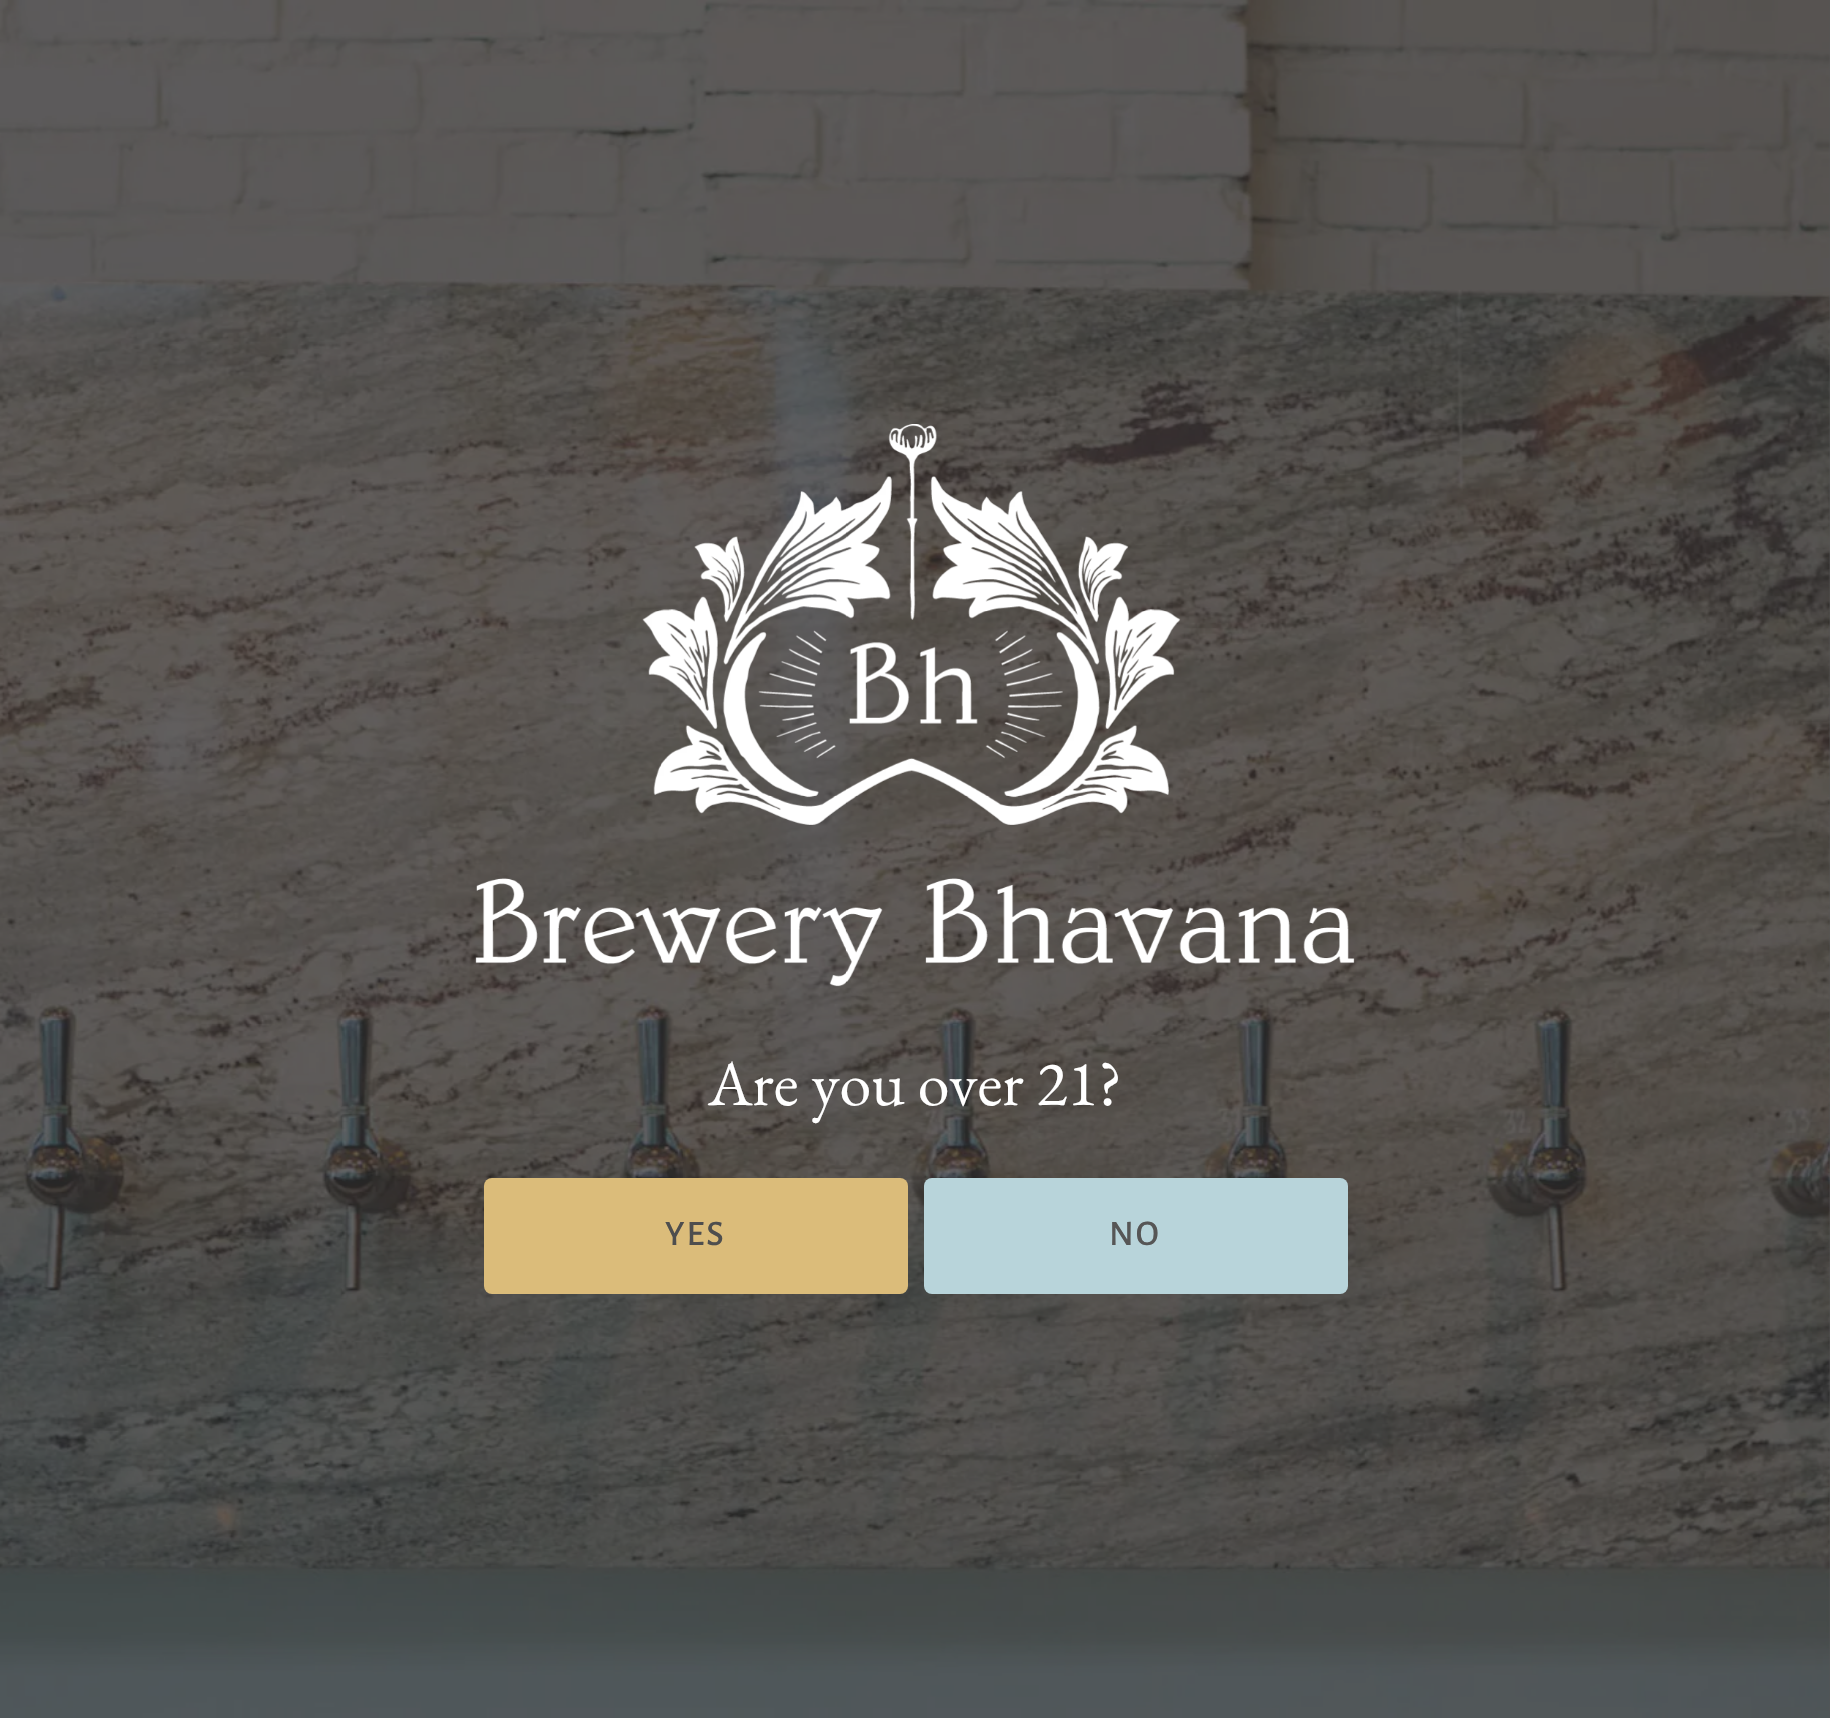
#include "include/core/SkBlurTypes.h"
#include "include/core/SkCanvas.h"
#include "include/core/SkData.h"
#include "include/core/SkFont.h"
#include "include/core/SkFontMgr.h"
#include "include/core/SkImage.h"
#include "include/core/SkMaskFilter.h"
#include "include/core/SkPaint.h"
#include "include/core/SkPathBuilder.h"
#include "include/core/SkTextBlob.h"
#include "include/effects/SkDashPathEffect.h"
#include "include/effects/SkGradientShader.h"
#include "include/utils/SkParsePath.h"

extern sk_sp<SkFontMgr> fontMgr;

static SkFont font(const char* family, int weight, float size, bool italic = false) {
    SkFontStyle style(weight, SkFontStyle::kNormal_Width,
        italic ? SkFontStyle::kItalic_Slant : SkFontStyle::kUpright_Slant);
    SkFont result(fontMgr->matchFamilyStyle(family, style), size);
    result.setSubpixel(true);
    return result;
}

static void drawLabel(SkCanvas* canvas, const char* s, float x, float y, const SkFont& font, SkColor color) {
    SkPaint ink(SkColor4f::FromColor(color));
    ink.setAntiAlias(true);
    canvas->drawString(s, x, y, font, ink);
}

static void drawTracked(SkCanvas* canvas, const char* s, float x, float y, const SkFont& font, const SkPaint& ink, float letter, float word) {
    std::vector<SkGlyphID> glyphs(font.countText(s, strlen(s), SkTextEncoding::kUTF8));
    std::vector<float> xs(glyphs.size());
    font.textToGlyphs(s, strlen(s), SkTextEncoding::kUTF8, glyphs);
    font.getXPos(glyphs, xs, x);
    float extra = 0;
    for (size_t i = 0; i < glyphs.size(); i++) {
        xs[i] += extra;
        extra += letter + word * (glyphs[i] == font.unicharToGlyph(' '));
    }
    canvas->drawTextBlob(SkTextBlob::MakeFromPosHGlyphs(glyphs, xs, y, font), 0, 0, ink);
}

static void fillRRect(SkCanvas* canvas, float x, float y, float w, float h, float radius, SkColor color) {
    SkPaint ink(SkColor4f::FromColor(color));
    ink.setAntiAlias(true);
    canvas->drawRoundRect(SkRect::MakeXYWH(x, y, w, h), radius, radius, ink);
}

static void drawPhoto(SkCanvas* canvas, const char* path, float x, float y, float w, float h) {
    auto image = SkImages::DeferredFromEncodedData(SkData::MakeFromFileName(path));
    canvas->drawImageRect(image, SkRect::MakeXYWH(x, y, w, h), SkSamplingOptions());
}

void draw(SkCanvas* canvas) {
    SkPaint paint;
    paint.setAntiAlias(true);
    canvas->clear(0xFF555555);
    drawPhoto(canvas, "assets/img1.png", 0, 0, 1830, 1718);
    drawPhoto(canvas, "assets/img2.png", 475, 424, 880, 563);
    SkFont font1 = font("EB Garamond", 400, 64);
    drawLabel(canvas, "Are you over 21?", 708, 1105, font1, 0xFFFFFFFF);
    fillRRect(canvas, 484, 1178, 424, 116, 8, 0xFFDBBC7A);
    SkFont font2 = font("Alegreya Sans", 500, 36);
    paint.setColor(0xFF4E4E4E);
    drawTracked(canvas, "YES", 665, 1245, font2, paint, 2, 0);
    fillRRect(canvas, 924, 1178, 424, 116, 8, 0xFFB8D4DA);
    paint.setColor(0xFF565656);
    drawTracked(canvas, "NO", 1109, 1245, font2, paint, 2, 0);
}
